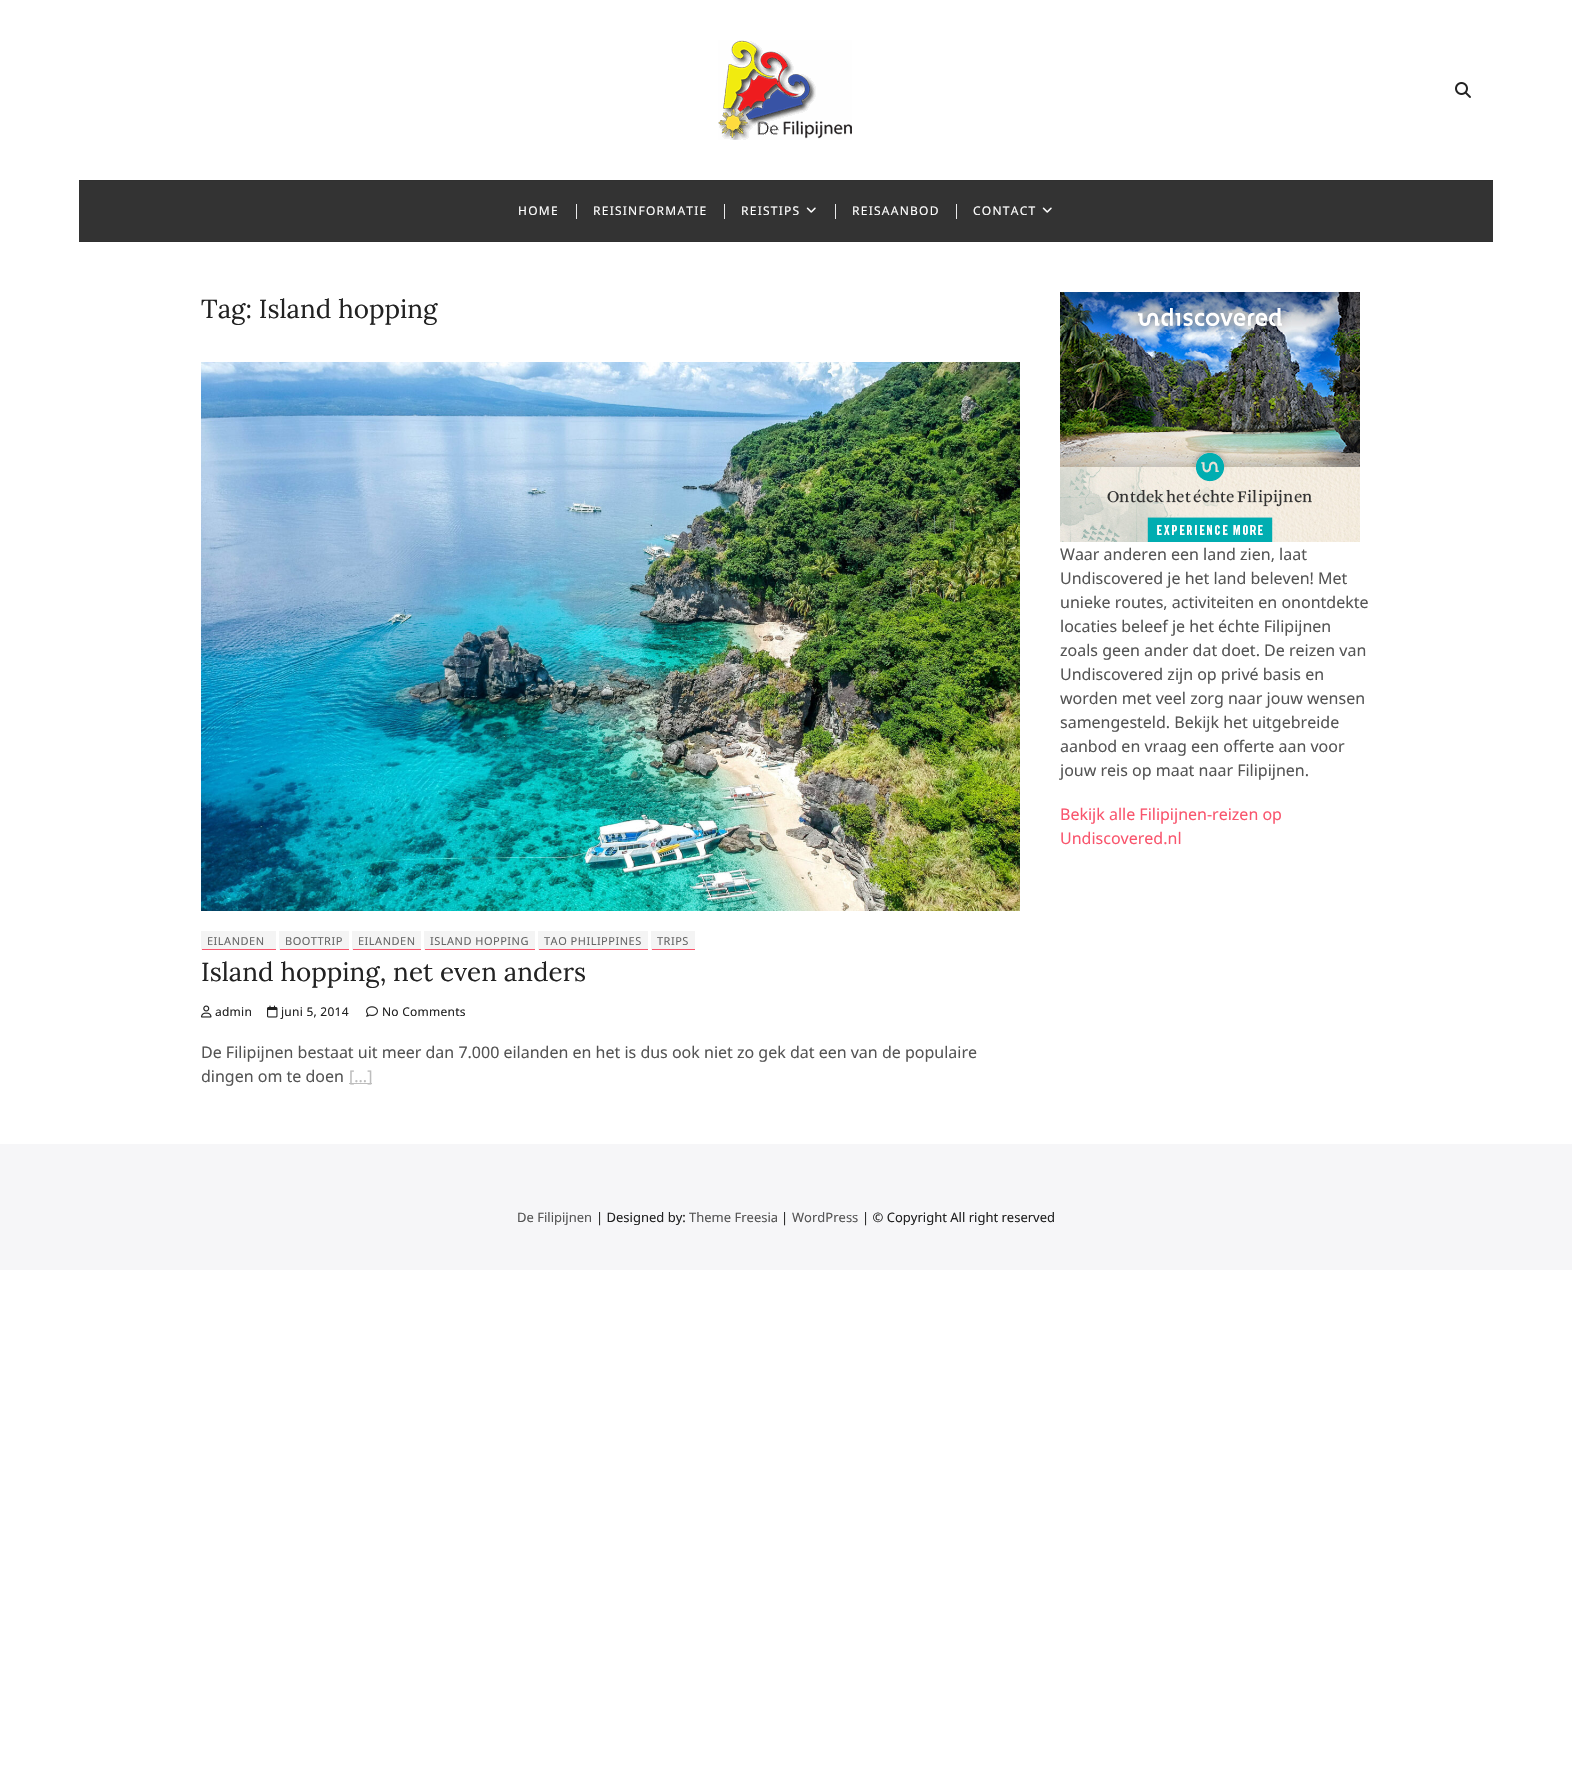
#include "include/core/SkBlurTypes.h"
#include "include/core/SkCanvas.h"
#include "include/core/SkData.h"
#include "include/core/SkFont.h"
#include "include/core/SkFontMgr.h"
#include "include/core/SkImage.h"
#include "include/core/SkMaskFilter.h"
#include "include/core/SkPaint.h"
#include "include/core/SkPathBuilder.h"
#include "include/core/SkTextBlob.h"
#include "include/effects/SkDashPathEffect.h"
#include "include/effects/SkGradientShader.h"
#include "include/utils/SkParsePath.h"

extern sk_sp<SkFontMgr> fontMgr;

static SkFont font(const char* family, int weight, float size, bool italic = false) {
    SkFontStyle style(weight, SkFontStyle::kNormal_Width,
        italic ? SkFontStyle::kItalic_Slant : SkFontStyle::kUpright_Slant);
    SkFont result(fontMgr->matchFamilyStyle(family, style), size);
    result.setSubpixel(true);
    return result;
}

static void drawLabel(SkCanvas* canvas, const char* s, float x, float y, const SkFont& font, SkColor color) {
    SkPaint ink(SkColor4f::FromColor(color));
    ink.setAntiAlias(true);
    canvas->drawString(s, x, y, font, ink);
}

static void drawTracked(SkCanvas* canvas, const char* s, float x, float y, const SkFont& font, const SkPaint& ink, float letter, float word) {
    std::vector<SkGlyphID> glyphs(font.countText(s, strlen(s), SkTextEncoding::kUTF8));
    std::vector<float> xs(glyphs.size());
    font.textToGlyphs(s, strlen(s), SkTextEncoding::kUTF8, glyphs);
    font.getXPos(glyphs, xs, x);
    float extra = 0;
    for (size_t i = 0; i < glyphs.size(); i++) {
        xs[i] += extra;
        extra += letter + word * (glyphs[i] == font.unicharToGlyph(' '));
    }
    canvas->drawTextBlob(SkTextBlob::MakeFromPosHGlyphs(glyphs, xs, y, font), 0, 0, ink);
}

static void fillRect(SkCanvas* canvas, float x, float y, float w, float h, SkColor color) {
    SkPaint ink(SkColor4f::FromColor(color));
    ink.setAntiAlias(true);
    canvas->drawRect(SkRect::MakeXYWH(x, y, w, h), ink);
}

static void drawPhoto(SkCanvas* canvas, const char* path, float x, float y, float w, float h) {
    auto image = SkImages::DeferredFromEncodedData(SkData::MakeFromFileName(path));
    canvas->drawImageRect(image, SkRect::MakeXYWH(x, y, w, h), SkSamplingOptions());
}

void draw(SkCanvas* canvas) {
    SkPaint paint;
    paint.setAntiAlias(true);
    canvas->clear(0xFFFFFFFF);
    drawPhoto(canvas, "assets/img1.png", 718, 40, 134, 100);
    drawPhoto(canvas, "assets/img2.png", 1455, 82, 16, 16);
    fillRect(canvas, 79, 181, 1414, 60, 0xFF333333);
    fillRect(canvas, 79, 180, 1414, 1, 0xFF303030);
    fillRect(canvas, 79, 241, 1414, 1, 0xFF303030);
    SkFont font1 = font("Noto Sans", 400, 12);
    paint.setColor(0xFFFFFFFF);
    drawTracked(canvas, "HOME", 518, 215, font1, paint, 1.25f, 0);
    fillRect(canvas, 576, 204, 1, 15, 0xFFEAEAEB);
    drawTracked(canvas, "REISINFORMATIE", 593, 215, font1, paint, 1.25f, 0);
    fillRect(canvas, 724, 204, 1, 15, 0xFFEAEAEB);
    drawTracked(canvas, "REISTIPS", 741, 215, font1, paint, 1.25f, 0);
    drawPhoto(canvas, "assets/img3.png", 806, 207, 10, 6);
    fillRect(canvas, 835, 204, 1, 15, 0xFFEAEAEB);
    drawTracked(canvas, "REISAANBOD", 852, 215, font1, paint, 1.25f, 0);
    fillRect(canvas, 956, 204, 1, 15, 0xFFEAEAEB);
    drawTracked(canvas, "CONTACT", 973, 215, font1, paint, 1.25f, 0);
    drawPhoto(canvas, "assets/img3.png", 1042, 207, 10, 6);
    SkFont font2 = font("Lora", 400, 26);
    drawLabel(canvas, "Tag: Island hopping", 201, 318, font2, 0xFF222222);
    drawPhoto(canvas, "assets/img4.png", 201, 362, 819, 549);
    fillRect(canvas, 202, 931, 74, 18, 0xFFF4F4F4);
    fillRect(canvas, 201, 949, 75, 1, 0xFFF9556D);
    fillRect(canvas, 201, 931, 1, 19, 0xFFF4F4F4);
    SkFont font3 = font("Noto Sans", 400, 11);
    paint.setColor(0xFF666666);
    drawTracked(canvas, "EILANDEN", 207, 945, font3, paint, 0.5f, 0);
    fillRect(canvas, 280, 931, 69, 18, 0xFFF4F4F4);
    fillRect(canvas, 279, 949, 70, 1, 0xFFF9556D);
    fillRect(canvas, 279, 931, 1, 19, 0xFFF4F4F4);
    drawTracked(canvas, "BOOTTRIP", 285, 945, font3, paint, 0.5f, 0);
    fillRect(canvas, 353, 931, 68, 18, 0xFFF4F4F4);
    fillRect(canvas, 352, 949, 69, 1, 0xFFF9556D);
    fillRect(canvas, 352, 931, 1, 19, 0xFFF4F4F4);
    drawTracked(canvas, "EILANDEN", 358, 945, font3, paint, 0.5f, 0);
    fillRect(canvas, 425, 931, 110, 18, 0xFFF4F4F4);
    fillRect(canvas, 424, 949, 111, 1, 0xFFF9556D);
    fillRect(canvas, 424, 931, 1, 19, 0xFFF4F4F4);
    drawTracked(canvas, "ISLAND HOPPING", 430, 945, font3, paint, 0.5f, 0);
    fillRect(canvas, 539, 931, 109, 18, 0xFFF4F4F4);
    fillRect(canvas, 538, 949, 110, 1, 0xFFF9556D);
    fillRect(canvas, 538, 931, 1, 19, 0xFFF4F4F4);
    drawTracked(canvas, "TAO PHILIPPINES", 544, 945, font3, paint, 0.5f, 0);
    fillRect(canvas, 652, 931, 43, 18, 0xFFF4F4F4);
    fillRect(canvas, 651, 949, 44, 1, 0xFFF9556D);
    fillRect(canvas, 651, 931, 1, 19, 0xFFF4F4F4);
    drawTracked(canvas, "TRIPS", 657, 945, font3, paint, 0.5f, 0);
    drawLabel(canvas, "Island hopping, net even anders", 201, 981, font2, 0xFF222222);
    drawPhoto(canvas, "assets/img5.png", 201, 1005, 11, 13);
    paint.setColor(0xFF222222);
    drawTracked(canvas, "admin", 215, 1016, font1, paint, 0.25f, 0);
    drawPhoto(canvas, "assets/img6.png", 267, 1005, 11, 13);
    drawTracked(canvas, "juni 5, 2014", 281, 1016, font1, paint, 0.25f, 0);
    drawPhoto(canvas, "assets/img7.png", 366, 1006, 12, 11);
    drawTracked(canvas, "No Comments", 382, 1016, font1, paint, 0.25f, 0);
    SkFont font4 = font("Noto Sans", 400, 16);
    drawLabel(canvas, "De Filipijnen bestaat uit meer dan 7.000 eilanden en het is dus ook niet zo gek dat een van de populaire", 201, 1058, font4, 0xFF555555);
    drawLabel(canvas, "dingen om te doen", 201, 1082, font4, 0xFF555555);
    fillRect(canvas, 349, 1083, 23, 1, 0xFFBDBDBD);
    drawLabel(canvas, "[...]", 349, 1082, font4, 0xFFBDBDBD);
    drawPhoto(canvas, "assets/img8.png", 1060, 292, 300, 250);
    drawLabel(canvas, "Waar anderen een land zien, laat", 1060, 560, font4, 0xFF555555);
    drawLabel(canvas, "Undiscovered je het land beleven! Met", 1060, 584, font4, 0xFF555555);
    drawLabel(canvas, "unieke routes, activiteiten en onontdekte", 1060, 608, font4, 0xFF555555);
    drawLabel(canvas, "locaties beleef je het échte Filipijnen", 1060, 632, font4, 0xFF555555);
    drawLabel(canvas, "zoals geen ander dat doet. De reizen van", 1060, 656, font4, 0xFF555555);
    drawLabel(canvas, "Undiscovered zijn op privé basis en", 1060, 680, font4, 0xFF555555);
    drawLabel(canvas, "worden met veel zorg naar jouw wensen", 1060, 704, font4, 0xFF555555);
    drawLabel(canvas, "samengesteld. Bekijk het uitgebreide", 1060, 728, font4, 0xFF555555);
    drawLabel(canvas, "aanbod en vraag een offerte aan voor", 1060, 752, font4, 0xFF555555);
    drawLabel(canvas, "jouw reis op maat naar Filipijnen.", 1060, 776, font4, 0xFF555555);
    drawLabel(canvas, "Bekijk alle Filipijnen-reizen op", 1060, 820, font4, 0xFFF9556D);
    drawLabel(canvas, "Undiscovered.nl", 1060, 844, font4, 0xFFF9556D);
    fillRect(canvas, 0, 1144, 1572, 126, 0xFFF6F6F8);
    SkFont font5 = font("Noto Sans", 400, 13);
    drawLabel(canvas, "De Filipijnen", 517, 1222, font5, 0xFF555555);
    drawLabel(canvas, "| Designed by:", 596, 1222, font5, 0xFF222222);
    drawLabel(canvas, "Theme Freesia", 689, 1222, font5, 0xFF555555);
    drawLabel(canvas, "|", 781, 1222, font5, 0xFF222222);
    drawLabel(canvas, "WordPress", 792, 1222, font5, 0xFF555555);
    drawLabel(canvas, "| © Copyright All right reserved", 862, 1222, font5, 0xFF222222);
}
